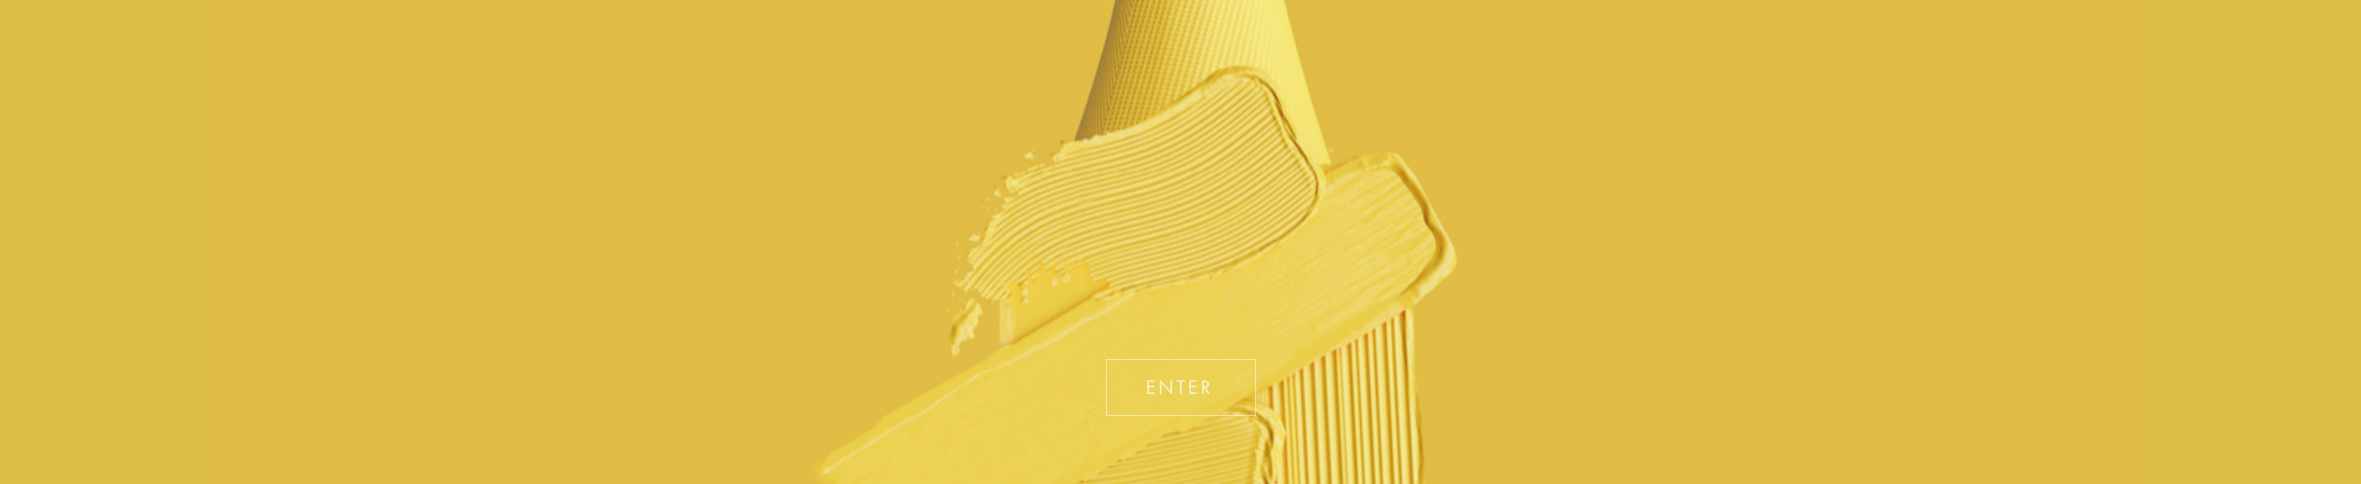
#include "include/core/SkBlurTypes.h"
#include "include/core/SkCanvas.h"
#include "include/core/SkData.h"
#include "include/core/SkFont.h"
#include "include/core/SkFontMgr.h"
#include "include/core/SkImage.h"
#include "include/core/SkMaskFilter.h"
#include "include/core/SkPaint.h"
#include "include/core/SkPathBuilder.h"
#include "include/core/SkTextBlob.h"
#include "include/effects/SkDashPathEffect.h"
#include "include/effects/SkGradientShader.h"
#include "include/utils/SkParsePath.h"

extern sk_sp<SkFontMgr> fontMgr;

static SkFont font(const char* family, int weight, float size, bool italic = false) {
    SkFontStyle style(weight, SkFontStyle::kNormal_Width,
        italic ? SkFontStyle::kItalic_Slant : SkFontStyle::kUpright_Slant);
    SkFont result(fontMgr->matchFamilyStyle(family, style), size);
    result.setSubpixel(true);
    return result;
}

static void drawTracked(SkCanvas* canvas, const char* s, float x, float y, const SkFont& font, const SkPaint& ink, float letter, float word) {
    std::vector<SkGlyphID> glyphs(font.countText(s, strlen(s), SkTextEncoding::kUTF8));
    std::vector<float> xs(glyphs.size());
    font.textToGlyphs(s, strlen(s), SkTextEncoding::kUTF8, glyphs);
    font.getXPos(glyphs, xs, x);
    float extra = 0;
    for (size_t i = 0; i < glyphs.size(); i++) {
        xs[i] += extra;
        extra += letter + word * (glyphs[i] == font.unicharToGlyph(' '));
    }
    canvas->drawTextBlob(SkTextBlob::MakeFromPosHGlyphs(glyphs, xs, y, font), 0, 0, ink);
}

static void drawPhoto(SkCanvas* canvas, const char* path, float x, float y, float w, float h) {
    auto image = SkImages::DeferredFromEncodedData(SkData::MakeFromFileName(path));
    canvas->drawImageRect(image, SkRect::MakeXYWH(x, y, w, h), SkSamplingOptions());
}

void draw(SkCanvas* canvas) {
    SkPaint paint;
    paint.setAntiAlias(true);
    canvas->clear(0xFFFFFFFF);
    drawPhoto(canvas, "assets/img1.png", 0, 0, 2361, 484);
    drawPhoto(canvas, "assets/img2.png", 953, 0, 502, 484);
    paint.setStroke(true);
    paint.setStrokeWidth(1);
    paint.setColor(0x7DFFFFFF);
    canvas->drawRect(SkRect::MakeXYWH(1106.5f, 359.5f, 149, 56), paint);
    SkFont font1 = font("Futura", 400, 18);
    paint.setStroke(false);
    paint.setColor(0xFFF9F1CC);
    drawTracked(canvas, "ENTER", 1146, 394, font1, paint, 3, 0);
}
